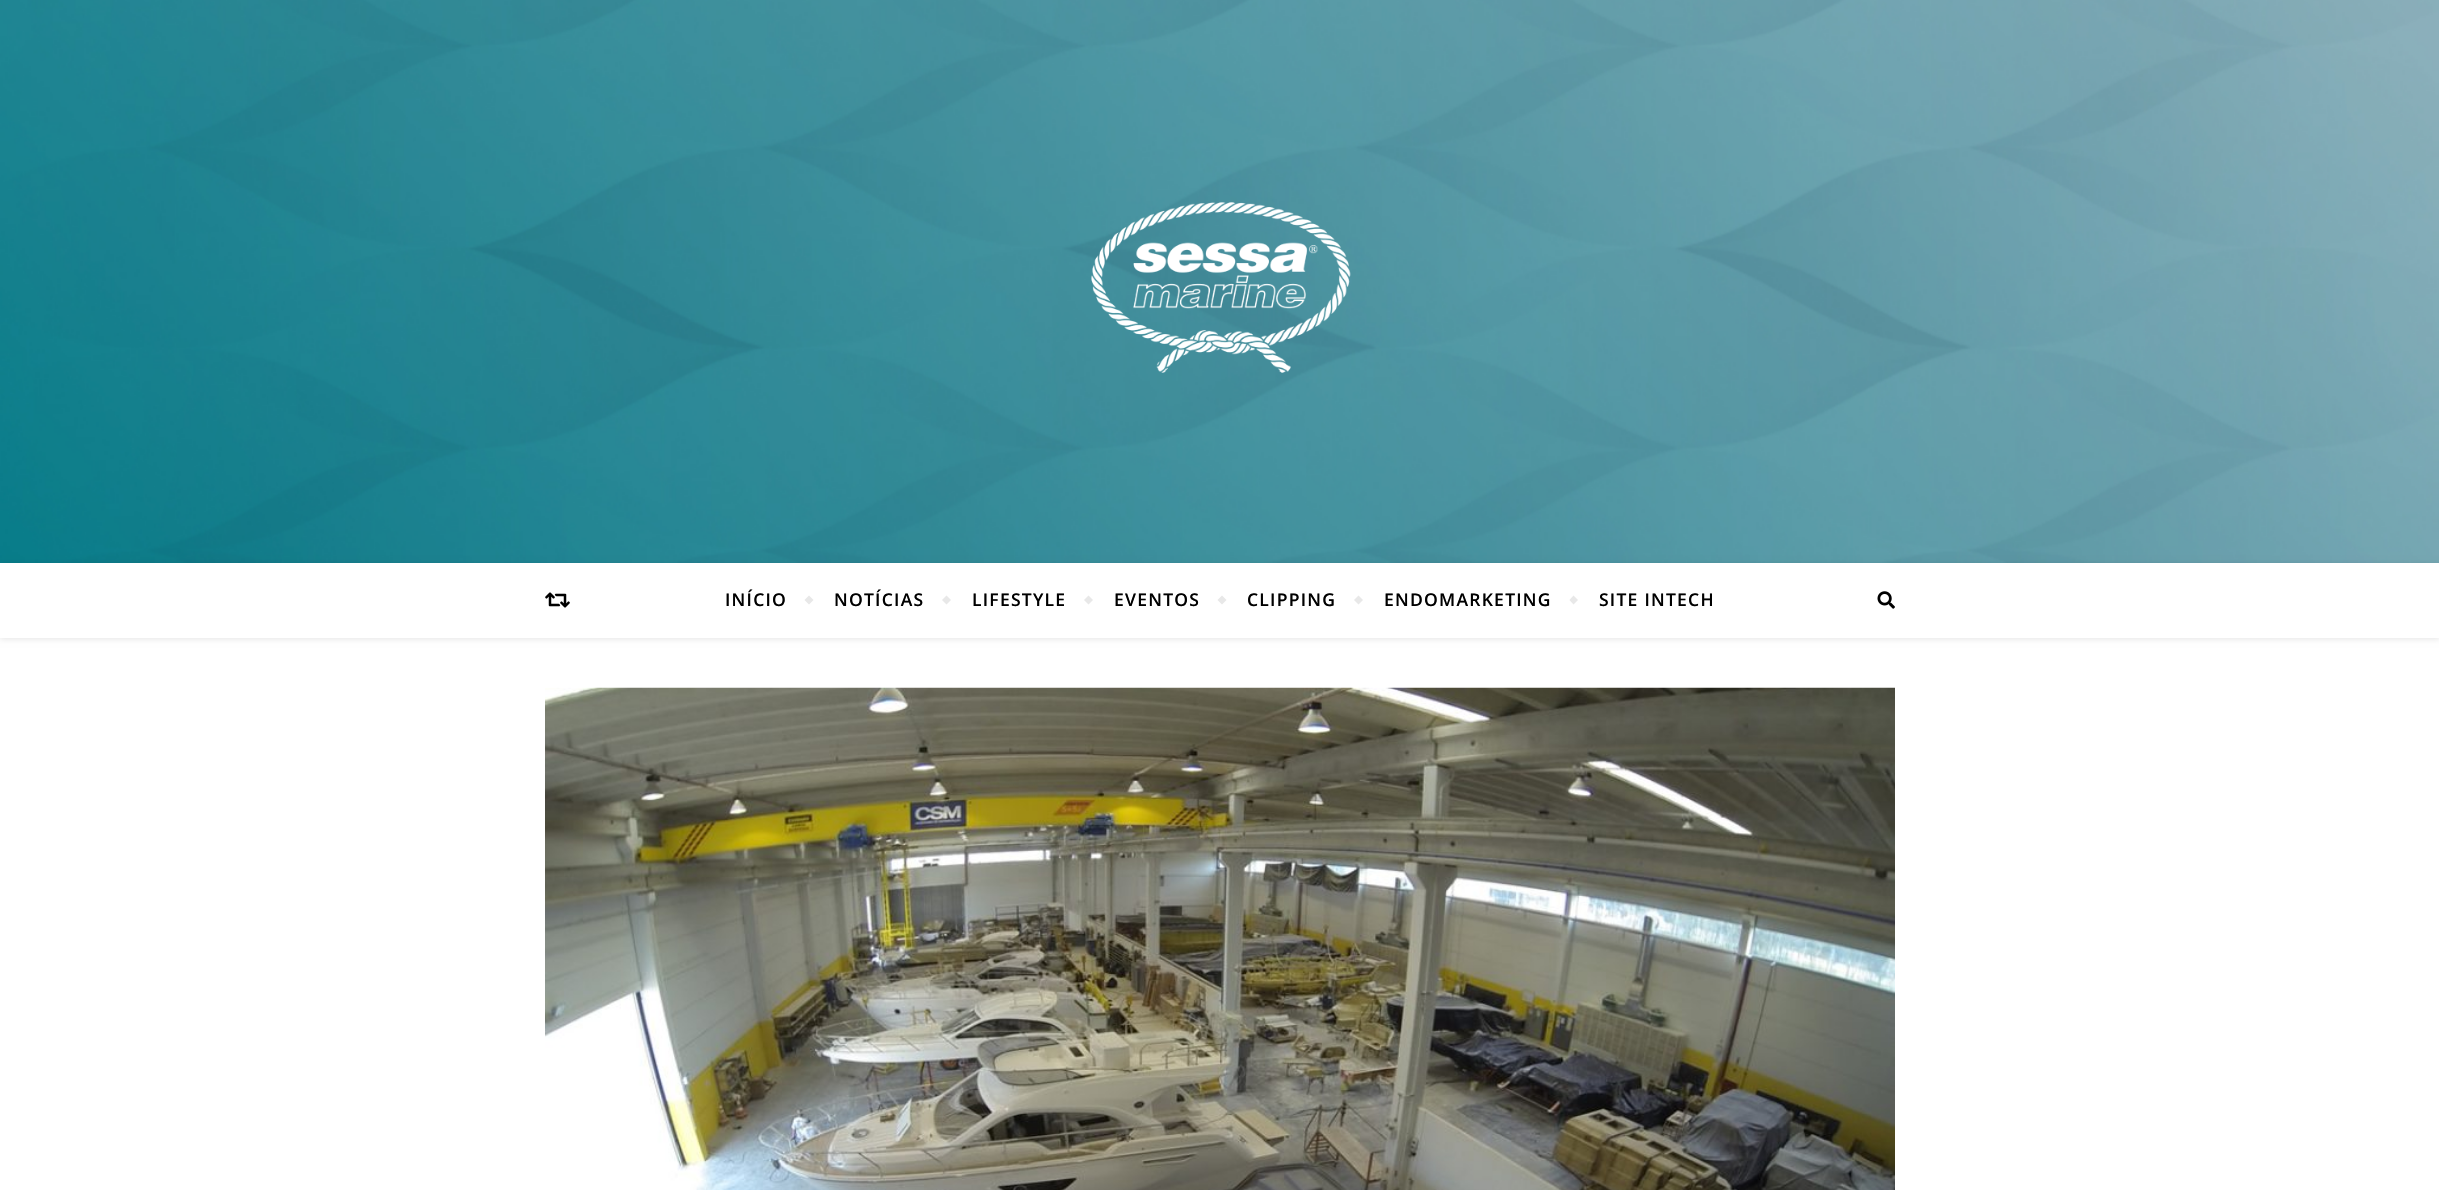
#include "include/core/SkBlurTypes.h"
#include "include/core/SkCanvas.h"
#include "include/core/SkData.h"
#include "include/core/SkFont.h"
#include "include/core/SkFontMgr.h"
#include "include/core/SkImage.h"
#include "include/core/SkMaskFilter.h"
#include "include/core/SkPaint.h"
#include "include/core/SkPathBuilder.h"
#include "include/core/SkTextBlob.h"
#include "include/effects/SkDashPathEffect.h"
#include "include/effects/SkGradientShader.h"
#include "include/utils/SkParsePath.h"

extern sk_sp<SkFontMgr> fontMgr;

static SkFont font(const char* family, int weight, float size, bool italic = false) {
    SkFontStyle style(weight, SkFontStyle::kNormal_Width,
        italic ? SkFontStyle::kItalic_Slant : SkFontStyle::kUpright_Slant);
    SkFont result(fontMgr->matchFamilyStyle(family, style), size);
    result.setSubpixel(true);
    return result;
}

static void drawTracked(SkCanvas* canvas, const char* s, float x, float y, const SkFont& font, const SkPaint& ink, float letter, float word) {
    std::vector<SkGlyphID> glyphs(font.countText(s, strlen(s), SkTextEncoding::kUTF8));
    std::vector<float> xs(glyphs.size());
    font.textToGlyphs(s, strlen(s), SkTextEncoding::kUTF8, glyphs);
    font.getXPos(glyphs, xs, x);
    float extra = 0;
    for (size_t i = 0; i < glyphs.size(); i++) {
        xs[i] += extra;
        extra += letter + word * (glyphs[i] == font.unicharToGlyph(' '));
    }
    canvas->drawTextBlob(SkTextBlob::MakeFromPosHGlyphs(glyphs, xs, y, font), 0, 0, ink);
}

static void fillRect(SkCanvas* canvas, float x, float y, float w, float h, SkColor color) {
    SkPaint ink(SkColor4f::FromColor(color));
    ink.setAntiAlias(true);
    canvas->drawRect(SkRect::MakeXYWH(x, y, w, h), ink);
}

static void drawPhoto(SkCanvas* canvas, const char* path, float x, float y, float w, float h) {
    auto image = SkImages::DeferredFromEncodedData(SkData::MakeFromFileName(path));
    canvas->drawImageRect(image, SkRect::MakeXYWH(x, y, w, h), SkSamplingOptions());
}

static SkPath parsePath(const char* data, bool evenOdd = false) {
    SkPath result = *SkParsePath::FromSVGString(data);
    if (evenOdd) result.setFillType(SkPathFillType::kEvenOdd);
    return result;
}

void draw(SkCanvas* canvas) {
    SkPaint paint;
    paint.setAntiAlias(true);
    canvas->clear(0xFFFFFFFF);
    drawPhoto(canvas, "assets/img1.png", 0, 0, 2439, 563);
    drawPhoto(canvas, "assets/img2.png", 1091, 202, 260, 171);
    paint.setColor(0x1A000000);
    paint.setMaskFilter(SkMaskFilter::MakeBlur(kNormal_SkBlurStyle, 3));
    canvas->drawRect(SkRect::MakeXYWH(0, 564, 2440, 75), paint);
    paint.setMaskFilter(nullptr);
    fillRect(canvas, 0, 563, 2439, 75, 0xFFFFFFFF);
    drawPhoto(canvas, "assets/img3.png", 545, 592, 25, 16);
    SkFont font1 = font("Open Sans", 600, 17.5f);
    paint.setColor(0xFF000000);
    drawTracked(canvas, "INÍCIO", 725, 606, font1, paint, 1.25f, 0);
    paint.setColor(0xFFE8E8E8);
    canvas->drawPath(parsePath("M804.5 600L809 595.5L813.5 600L809 604.5Z"), paint);
    paint.setColor(0xFF000000);
    drawTracked(canvas, "NOTÍCIAS", 834, 606, font1, paint, 1.25f, 0);
    paint.setColor(0xFFE8E8E8);
    canvas->drawPath(parsePath("M942 600L946.5 595.5L951 600L946.5 604.5Z"), paint);
    paint.setColor(0xFF000000);
    drawTracked(canvas, "LIFESTYLE", 972, 606, font1, paint, 1.25f, 0);
    paint.setColor(0xFFE8E8E8);
    canvas->drawPath(parsePath("M1084 600L1088.5 595.5L1093 600L1088.5 604.5Z"), paint);
    paint.setColor(0xFF000000);
    drawTracked(canvas, "EVENTOS", 1114, 606, font1, paint, 1.25f, 0);
    paint.setColor(0xFFE8E8E8);
    canvas->drawPath(parsePath("M1217.5 600L1222 595.5L1226.5 600L1222 604.5Z"), paint);
    paint.setColor(0xFF000000);
    drawTracked(canvas, "CLIPPING", 1247, 606, font1, paint, 1.25f, 0);
    paint.setColor(0xFFE8E8E8);
    canvas->drawPath(parsePath("M1354 600L1358.5 595.5L1363 600L1358.5 604.5Z"), paint);
    paint.setColor(0xFF000000);
    drawTracked(canvas, "ENDOMARKETING", 1384, 606, font1, paint, 1.25f, 0);
    paint.setColor(0xFFE8E8E8);
    canvas->drawPath(parsePath("M1569.5 600L1573.5 595.5L1578 600L1573.5 604.5Z"), paint);
    paint.setColor(0xFF000000);
    drawTracked(canvas, "SITE INTECH", 1599, 606, font1, paint, 1.25f, 0);
    drawPhoto(canvas, "assets/img4.png", 1877, 591, 18, 18);
    drawPhoto(canvas, "assets/img5.png", 545, 687, 1350, 503);
}
